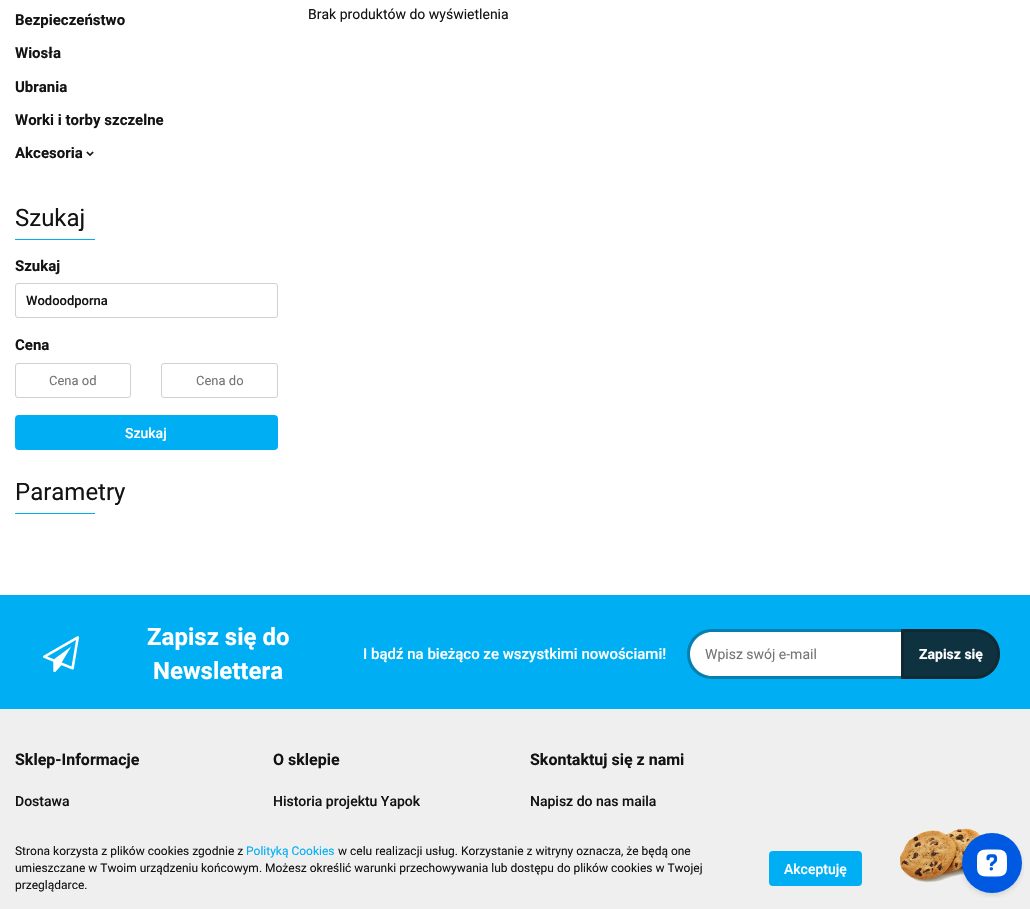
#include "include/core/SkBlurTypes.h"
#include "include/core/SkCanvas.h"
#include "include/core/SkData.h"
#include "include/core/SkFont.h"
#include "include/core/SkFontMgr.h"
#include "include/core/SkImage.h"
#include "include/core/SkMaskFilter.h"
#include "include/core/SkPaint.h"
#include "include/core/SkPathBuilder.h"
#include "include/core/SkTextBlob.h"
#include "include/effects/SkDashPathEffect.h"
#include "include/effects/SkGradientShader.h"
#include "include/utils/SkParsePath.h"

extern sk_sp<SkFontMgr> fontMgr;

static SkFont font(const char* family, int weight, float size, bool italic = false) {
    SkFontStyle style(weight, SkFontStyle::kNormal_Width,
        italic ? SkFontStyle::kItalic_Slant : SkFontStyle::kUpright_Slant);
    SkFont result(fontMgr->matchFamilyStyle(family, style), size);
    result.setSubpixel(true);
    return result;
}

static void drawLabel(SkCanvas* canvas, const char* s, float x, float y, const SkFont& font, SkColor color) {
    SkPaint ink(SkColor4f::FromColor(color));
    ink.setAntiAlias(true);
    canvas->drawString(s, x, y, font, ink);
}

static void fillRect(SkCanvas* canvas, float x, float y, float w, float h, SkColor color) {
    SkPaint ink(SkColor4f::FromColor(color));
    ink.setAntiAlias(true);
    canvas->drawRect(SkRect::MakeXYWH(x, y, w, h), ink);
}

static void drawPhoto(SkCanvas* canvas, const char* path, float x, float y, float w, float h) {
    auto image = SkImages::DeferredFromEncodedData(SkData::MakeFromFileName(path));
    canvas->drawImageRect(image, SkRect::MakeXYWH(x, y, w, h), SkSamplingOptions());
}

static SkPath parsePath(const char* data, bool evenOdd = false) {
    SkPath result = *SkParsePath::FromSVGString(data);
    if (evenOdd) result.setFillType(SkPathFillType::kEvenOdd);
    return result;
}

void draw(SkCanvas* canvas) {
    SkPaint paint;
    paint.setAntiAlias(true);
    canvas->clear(0xFFFFFFFF);
    SkFont font1 = font("Roboto", 700, 15);
    drawLabel(canvas, "Bezpieczeństwo", 15, 25, font1, 0xFF131313);
    drawLabel(canvas, "Wiosła", 15, 58, font1, 0xFF131313);
    drawLabel(canvas, "Ubrania", 15, 92, font1, 0xFF131313);
    drawLabel(canvas, "Worki i torby szczelne", 15, 125, font1, 0xFF131313);
    drawLabel(canvas, "Akcesoria", 15, 158, font1, 0xFF131313);
    drawPhoto(canvas, "assets/img1.png", 86, 151, 8, 6);
    SkFont font2 = font("Roboto", 400, 24);
    drawLabel(canvas, "Szukaj", 15, 226, font2, 0xFF131313);
    fillRect(canvas, 15, 239, 80, 1, 0xFF00AEF3);
    drawLabel(canvas, "Szukaj", 15, 271, font1, 0xFF131313);
    paint.setStroke(true);
    paint.setStrokeWidth(1);
    paint.setColor(0xFFD0D0D0);
    canvas->drawRoundRect(SkRect::MakeXYWH(15.5f, 283.5f, 262, 34), 2.5f, 2.5f, paint);
    SkFont font3 = font("Roboto", 500, 13);
    drawLabel(canvas, "Wodoodporna", 26, 305, font3, 0xFF131313);
    drawLabel(canvas, "Cena", 15, 350, font1, 0xFF131313);
    canvas->drawRoundRect(SkRect::MakeXYWH(15.5f, 363.5f, 115, 34), 2.5f, 2.5f, paint);
    SkFont font4 = font("Roboto", 400, 13);
    drawLabel(canvas, "Cena od", 49, 385, font4, 0xFF757575);
    canvas->drawRoundRect(SkRect::MakeXYWH(161.5f, 363.5f, 116, 34), 2.5f, 2.5f, paint);
    drawLabel(canvas, "Cena do", 196, 385, font4, 0xFF757575);
    paint.setStroke(false);
    paint.setColor(0xFF00AEF3);
    canvas->drawRoundRect(SkRect::MakeXYWH(16.5f, 416.5f, 260, 32), 2.5f, 2.5f, paint);
    paint.setStroke(true);
    paint.setStrokeWidth(3);
    canvas->drawRoundRect(SkRect::MakeXYWH(16.5f, 416.5f, 260, 32), 2.5f, 2.5f, paint);
    SkFont font5 = font("Roboto", 500, 14);
    drawLabel(canvas, "Szukaj", 125, 438, font5, 0xFFFFFFFF);
    drawLabel(canvas, "Parametry", 15, 500, font2, 0xFF131313);
    fillRect(canvas, 15, 513, 80, 1, 0xFF00AEF3);
    SkFont font6 = font("Roboto", 400, 14);
    drawLabel(canvas, "Brak produktów do wyświetlenia", 308, 19, font6, 0xFF131313);
    fillRect(canvas, 0, 595, 1030, 114, 0xFF00AEF3);
    drawPhoto(canvas, "assets/img2.png", 43, 636, 36, 37);
    SkFont font7 = font("Roboto", 700, 24);
    drawLabel(canvas, "Zapisz się do", 147, 645, font7, 0xFFFFFFFF);
    drawLabel(canvas, "Newslettera", 153, 679, font7, 0xFFFFFFFF);
    SkFont font8 = font("Roboto", 500, 15);
    drawLabel(canvas, "I bądź na bieżąco ze wszystkimi nowościami!", 363, 659, font8, 0xFFFFFFFF);
    paint.setStroke(false);
    paint.setColor(0xFFFFFFFF);
    canvas->drawPath(parsePath("M712 632H901V676H712C700 676 690 666 690 654C690 642 700 632 712 632Z"), paint);
    paint.setColor(0x4D131313);
    canvas->drawPath(parsePath("M712 629H901V679H712C698 679 687 668 687 654C687 640 698 629 712 629ZM712 632H901V676H712C700 676 690 666 690 654C690 642 700 632 712 632Z", true), paint);
    drawLabel(canvas, "Wpisz swój e-mail", 705, 659, font6, 0xFF757575);
    paint.setColor(0xFF0F3240);
    canvas->drawPath(parsePath("M901 629H975C989 629 1000 640 1000 654C1000 668 989 679 975 679H901Z"), paint);
    paint.setStroke(true);
    paint.setColor(0x4D131313);
    canvas->drawPath(parsePath("M902.5 630.5H975C988 630.5 998.5 641 998.5 654C998.5 667 988 677.5 975 677.5H902.5Z"), paint);
    SkFont font9 = font("Roboto", 700, 14);
    drawLabel(canvas, "Zapisz się", 919, 659, font9, 0xFFFFFFFF);
    fillRect(canvas, 0, 709, 1030, 200, 0xFFEFEFEF);
    SkFont font10 = font("Roboto", 700, 16);
    drawLabel(canvas, "Sklep-Informacje", 15, 765, font10, 0xFF131313);
    drawLabel(canvas, "Dostawa", 15, 806, font5, 0xFF131313);
    drawLabel(canvas, "O sklepie", 273, 765, font10, 0xFF131313);
    drawLabel(canvas, "Historia projektu Yapok", 273, 806, font5, 0xFF131313);
    drawLabel(canvas, "Skontaktuj się z nami", 530, 765, font10, 0xFF131313);
    drawLabel(canvas, "Napisz do nas maila", 530, 806, font5, 0xFF131313);
    SkFont font11 = font("Roboto", 400, 12);
    drawLabel(canvas, "Strona korzysta z plików cookies zgodnie z", 15, 855, font11, 0xFF131313);
    drawLabel(canvas, "Polityką Cookies", 246, 855, font11, 0xFF00AEF3);
    drawLabel(canvas, "w celu realizacji usług. Korzystanie z witryny oznacza, że będą one", 338, 855, font11, 0xFF131313);
    drawLabel(canvas, "umieszczane w Twoim urządzeniu końcowym. Możesz określić warunki przechowywania lub dostępu do plików cookies w Twojej", 15, 872, font11, 0xFF131313);
    drawLabel(canvas, "przeglądarce.", 15, 889, font11, 0xFF131313);
    paint.setStroke(false);
    paint.setColor(0xFF00AEF3);
    canvas->drawRoundRect(SkRect::MakeXYWH(770.5f, 852.5f, 90, 32), 2.5f, 2.5f, paint);
    paint.setStroke(true);
    canvas->drawRoundRect(SkRect::MakeXYWH(770.5f, 852.5f, 90, 32), 2.5f, 2.5f, paint);
    drawLabel(canvas, "Akceptuję", 784, 874, font5, 0xFFFFFFFF);
    drawPhoto(canvas, "assets/img3.png", 900, 828, 83, 55);
    drawPhoto(canvas, "assets/img4.png", 960, 833, 64, 65);
}
